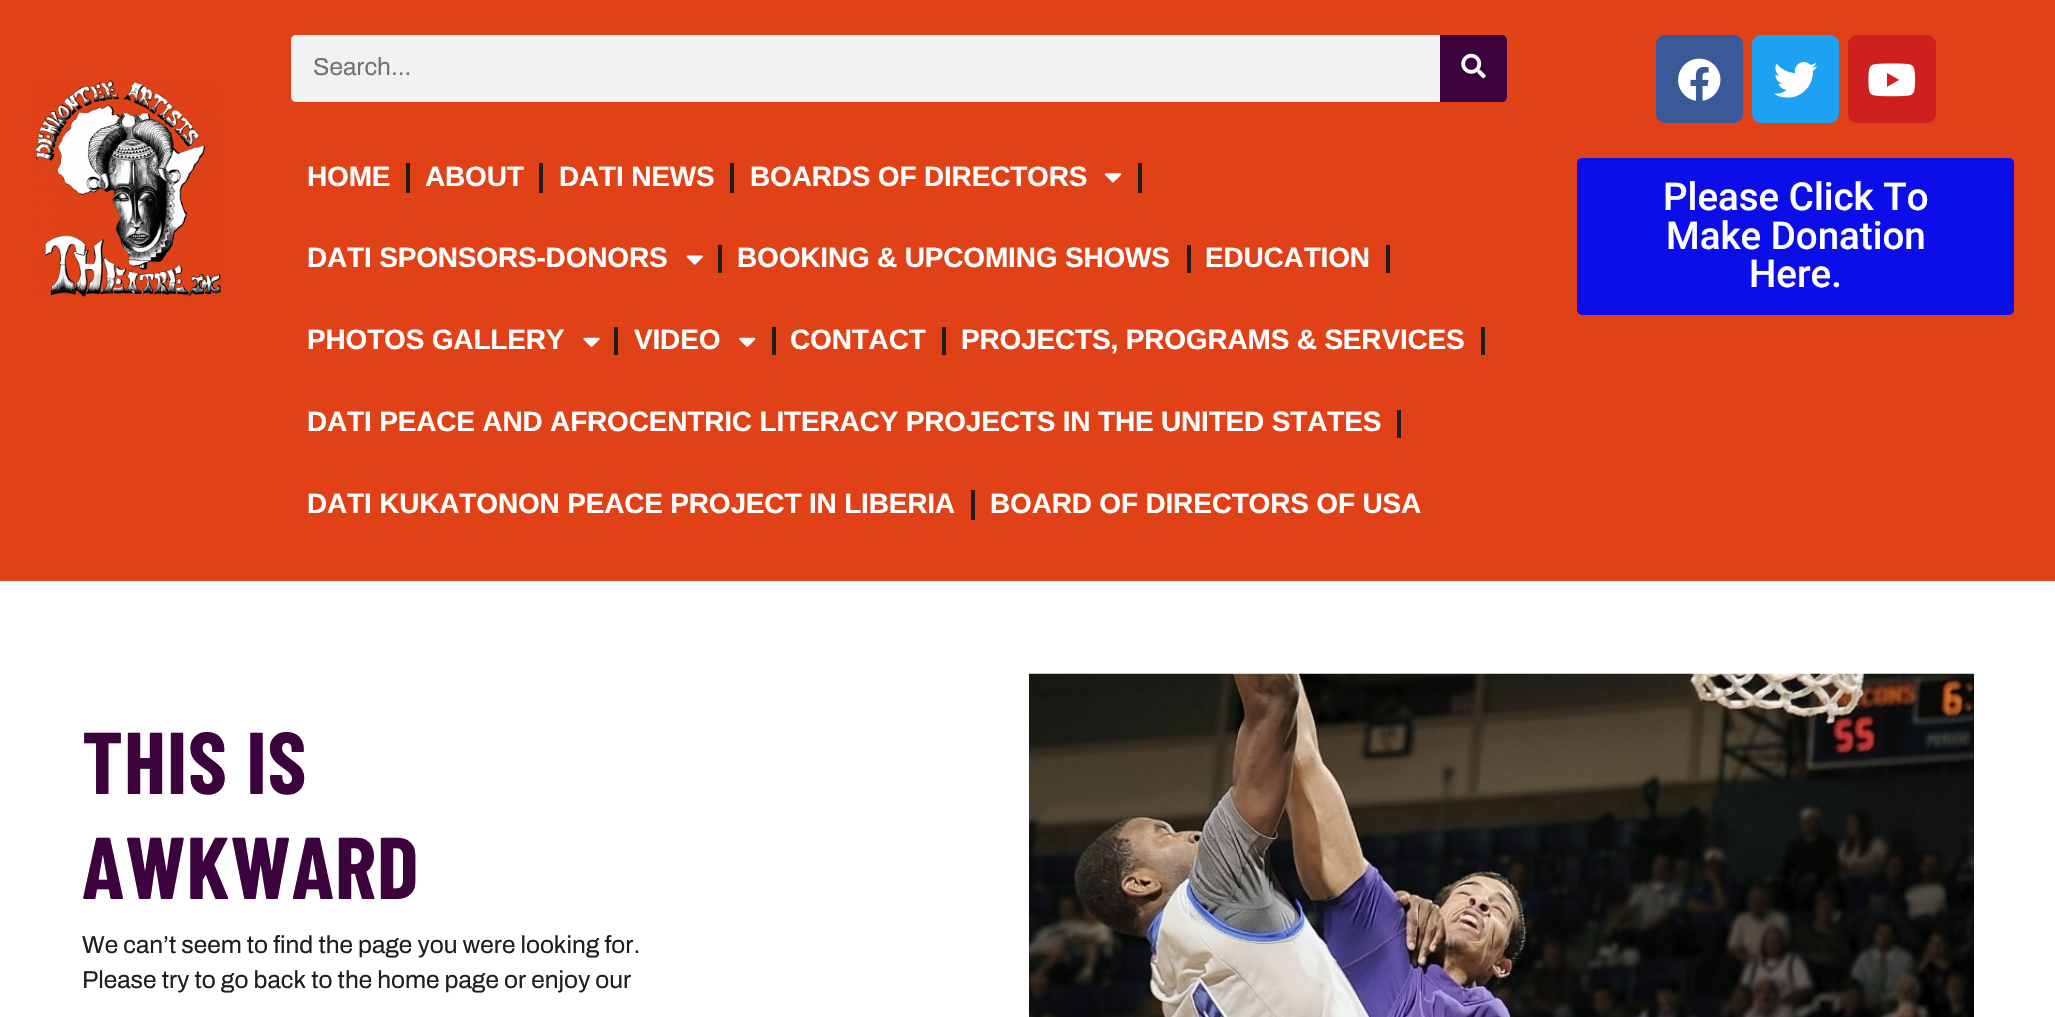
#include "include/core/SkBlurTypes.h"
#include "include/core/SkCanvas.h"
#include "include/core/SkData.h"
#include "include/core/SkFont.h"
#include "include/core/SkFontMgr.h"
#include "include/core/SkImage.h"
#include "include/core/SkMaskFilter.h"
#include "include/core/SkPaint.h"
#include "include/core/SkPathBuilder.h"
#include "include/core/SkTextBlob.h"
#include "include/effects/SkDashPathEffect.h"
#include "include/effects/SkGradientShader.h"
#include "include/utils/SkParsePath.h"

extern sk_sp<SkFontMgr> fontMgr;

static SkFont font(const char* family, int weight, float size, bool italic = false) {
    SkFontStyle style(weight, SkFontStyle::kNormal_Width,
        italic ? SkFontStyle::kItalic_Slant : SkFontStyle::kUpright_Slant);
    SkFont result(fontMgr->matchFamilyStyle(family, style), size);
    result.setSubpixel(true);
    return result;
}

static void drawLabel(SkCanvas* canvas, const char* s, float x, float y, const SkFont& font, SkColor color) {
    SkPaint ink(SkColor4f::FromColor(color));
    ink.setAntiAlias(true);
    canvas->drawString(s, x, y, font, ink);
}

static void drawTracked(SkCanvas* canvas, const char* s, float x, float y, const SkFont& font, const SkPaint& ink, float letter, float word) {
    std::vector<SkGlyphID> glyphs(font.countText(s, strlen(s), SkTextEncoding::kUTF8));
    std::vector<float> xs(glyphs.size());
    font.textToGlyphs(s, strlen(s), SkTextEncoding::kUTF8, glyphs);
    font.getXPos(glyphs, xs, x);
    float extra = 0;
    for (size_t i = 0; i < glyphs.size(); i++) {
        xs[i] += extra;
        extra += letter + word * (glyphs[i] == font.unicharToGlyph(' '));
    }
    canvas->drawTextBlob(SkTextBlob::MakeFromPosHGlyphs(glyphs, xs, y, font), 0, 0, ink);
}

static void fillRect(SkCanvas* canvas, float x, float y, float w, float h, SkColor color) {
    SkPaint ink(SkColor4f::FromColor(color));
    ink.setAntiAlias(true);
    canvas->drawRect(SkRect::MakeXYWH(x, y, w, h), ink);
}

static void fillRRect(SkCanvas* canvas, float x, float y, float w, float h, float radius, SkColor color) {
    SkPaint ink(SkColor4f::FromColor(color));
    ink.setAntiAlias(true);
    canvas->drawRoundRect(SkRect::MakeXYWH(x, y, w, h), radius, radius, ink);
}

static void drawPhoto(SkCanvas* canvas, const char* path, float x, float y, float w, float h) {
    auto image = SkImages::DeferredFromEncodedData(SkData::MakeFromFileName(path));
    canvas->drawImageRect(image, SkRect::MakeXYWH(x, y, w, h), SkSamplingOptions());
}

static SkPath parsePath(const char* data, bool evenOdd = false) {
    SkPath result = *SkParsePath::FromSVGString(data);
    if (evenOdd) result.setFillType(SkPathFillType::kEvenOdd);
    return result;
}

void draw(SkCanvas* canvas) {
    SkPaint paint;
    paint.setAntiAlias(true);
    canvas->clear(0xFFFFFFFF);
    fillRect(canvas, 0, 0, 2055, 581, 0xFFE04117);
    drawPhoto(canvas, "assets/img1.png", 35, 80, 186, 217);
    fillRRect(canvas, 291, 35, 1216, 67, 5, 0xFFF1F2F3);
    SkFont font1 = font("Archivo", 400, 24.5f);
    drawLabel(canvas, "Search...", 313, 75, font1, 0xFF727373);
    paint.setColor(0xFF3C023D);
    canvas->drawPath(parsePath("M1440 35H1502C1505 35 1507 37 1507 40V97C1507 100 1505 102 1502 102H1440Z"), paint);
    drawPhoto(canvas, "assets/img2.png", 1461, 53, 25, 26);
    SkFont font2 = font("Liberation Sans", 700, 28);
    paint.setColor(0xFFFFFFFF);
    drawTracked(canvas, "HOME", 307, 186, font2, paint, -0.18f, 0);
    fillRect(canvas, 406, 163, 4, 30, 0xFF1E1E1E);
    drawTracked(canvas, "ABOUT", 425, 186, font2, paint, -0.18f, 0);
    fillRect(canvas, 539, 163, 4, 30, 0xFF1E1E1E);
    drawTracked(canvas, "DATI NEWS", 559, 186, font2, paint, -0.18f, 0);
    fillRect(canvas, 730, 163, 4, 30, 0xFF1E1E1E);
    drawTracked(canvas, "BOARDS OF DIRECTORS", 750, 186, font2, paint, -0.18f, 0);
    drawPhoto(canvas, "assets/img3.png", 1104, 173, 18, 10);
    fillRect(canvas, 1138, 163, 4, 30, 0xFF1E1E1E);
    drawTracked(canvas, "DATI SPONSORS-DONORS", 307, 267, font2, paint, -0.18f, 0);
    drawPhoto(canvas, "assets/img4.png", 686, 255, 17, 10);
    fillRect(canvas, 718, 245, 4, 28, 0xFF1E1E1E);
    drawTracked(canvas, "BOOKING & UPCOMING SHOWS", 737, 267, font2, paint, -0.18f, 0);
    fillRect(canvas, 1187, 245, 4, 28, 0xFF1E1E1E);
    drawTracked(canvas, "EDUCATION", 1205, 267, font2, paint, -0.18f, 0);
    fillRect(canvas, 1386, 245, 4, 28, 0xFF1E1E1E);
    drawTracked(canvas, "PHOTOS GALLERY", 307, 349, font2, paint, -0.18f, 0);
    drawPhoto(canvas, "assets/img5.png", 583, 337, 17, 10);
    fillRect(canvas, 614, 327, 4, 28, 0xFF1E1E1E);
    drawTracked(canvas, "VIDEO", 634, 349, font2, paint, -0.18f, 0);
    drawPhoto(canvas, "assets/img6.png", 739, 337, 17, 10);
    fillRect(canvas, 772, 327, 4, 28, 0xFF1E1E1E);
    drawTracked(canvas, "CONTACT", 790, 349, font2, paint, -0.18f, 0);
    fillRect(canvas, 942, 327, 4, 28, 0xFF1E1E1E);
    drawTracked(canvas, "PROJECTS, PROGRAMS & SERVICES", 961, 349, font2, paint, -0.18f, 0);
    fillRect(canvas, 1481, 327, 4, 28, 0xFF1E1E1E);
    drawTracked(canvas, "DATI PEACE AND AFROCENTRIC LITERACY PROJECTS IN THE UNITED STATES", 307, 431, font2, paint, -0.18f, 0);
    fillRect(canvas, 1397, 410, 4, 28, 0xFF1E1E1E);
    drawTracked(canvas, "DATI KUKATONON PEACE PROJECT IN LIBERIA", 307, 513, font2, paint, -0.18f, 0);
    fillRect(canvas, 971, 490, 4, 30, 0xFF1E1E1E);
    drawTracked(canvas, "BOARD OF DIRECTORS OF USA", 990, 513, font2, paint, -0.18f, 0);
    fillRRect(canvas, 1656, 35, 87, 88, 9, 0xFF3B5998);
    drawPhoto(canvas, "assets/img7.png", 1678, 58, 43, 43);
    fillRRect(canvas, 1752, 35, 87, 88, 9, 0xFF1DA1F2);
    drawPhoto(canvas, "assets/img8.png", 1773, 62, 45, 36);
    fillRRect(canvas, 1848, 35, 88, 88, 9, 0xFFCD201F);
    drawPhoto(canvas, "assets/img9.png", 1868, 63, 48, 34);
    fillRRect(canvas, 1577, 158, 437, 157, 5, 0xFF0C0EE9);
    SkFont font3 = font("Roboto", 500, 38.5f);
    drawLabel(canvas, "Please Click To", 1663, 210, font3, 0xFFFFFFFF);
    drawLabel(canvas, "Make Donation", 1666, 249, font3, 0xFFFFFFFF);
    drawLabel(canvas, "Here.", 1749, 287, font3, 0xFFFFFFFF);
    SkFont font4 = font("Barlow Condensed", 700, 87.5f);
    paint.setColor(0xFF3C023D);
    drawTracked(canvas, "THIS IS", 82, 794, font4, paint, 1, 0);
    drawTracked(canvas, "AWKWARD", 82, 899, font4, paint, 1, 0);
    drawLabel(canvas, "We can’t seem to find the page you were looking for.", 82, 953, font1, 0xFF1E1E1E);
    drawLabel(canvas, "Please try to go back to the home page or enjoy our", 82, 988, font1, 0xFF1E1E1E);
    drawPhoto(canvas, "assets/img10.png", 1029, 673, 945, 344);
}
